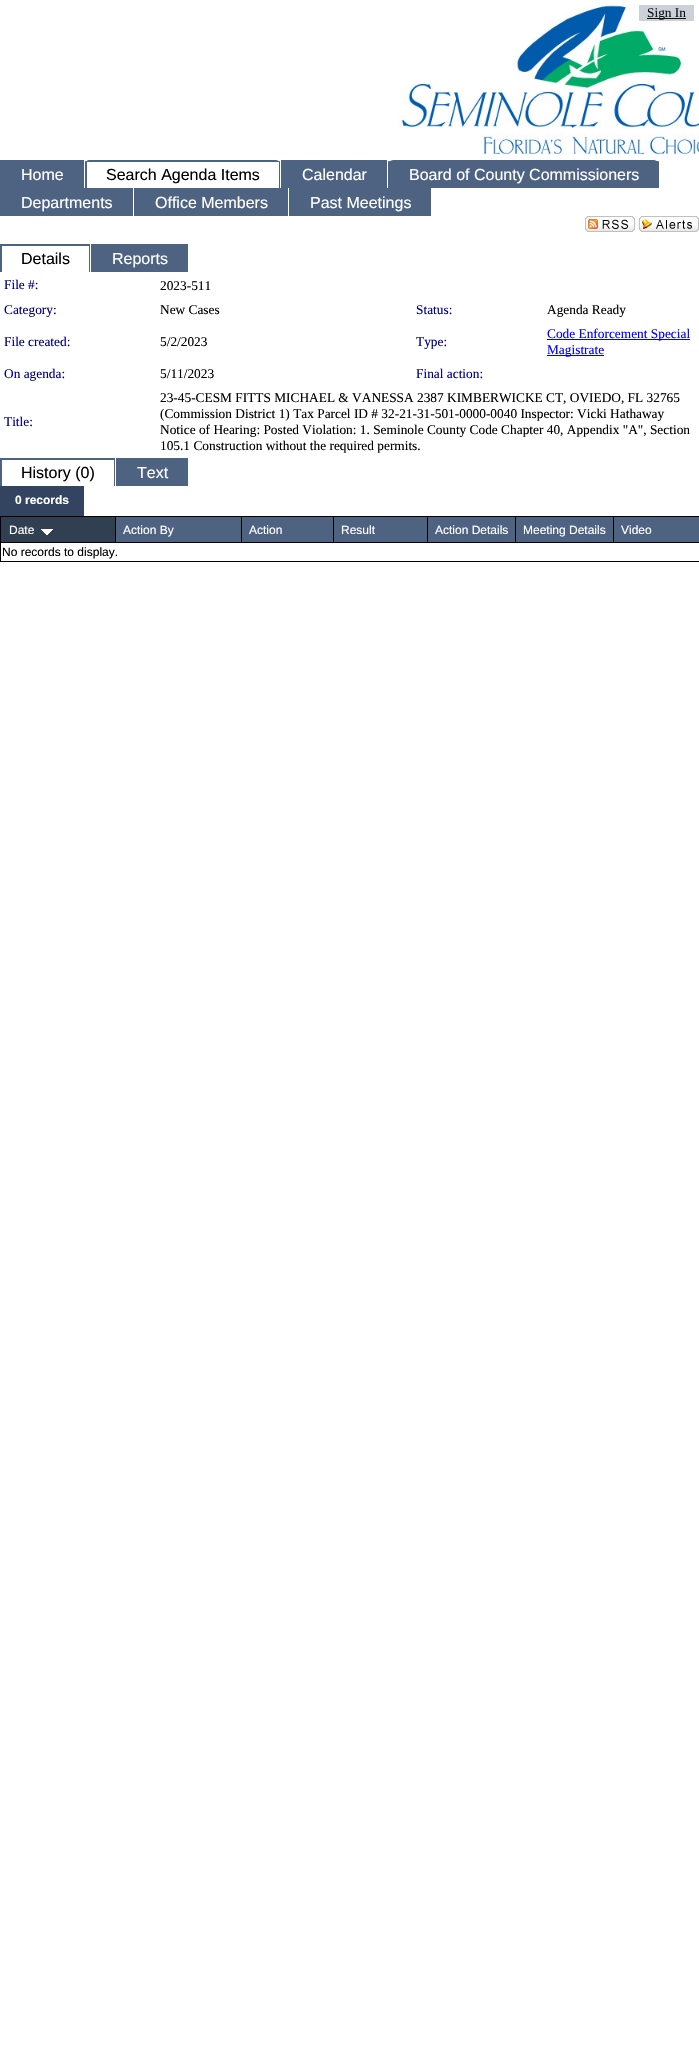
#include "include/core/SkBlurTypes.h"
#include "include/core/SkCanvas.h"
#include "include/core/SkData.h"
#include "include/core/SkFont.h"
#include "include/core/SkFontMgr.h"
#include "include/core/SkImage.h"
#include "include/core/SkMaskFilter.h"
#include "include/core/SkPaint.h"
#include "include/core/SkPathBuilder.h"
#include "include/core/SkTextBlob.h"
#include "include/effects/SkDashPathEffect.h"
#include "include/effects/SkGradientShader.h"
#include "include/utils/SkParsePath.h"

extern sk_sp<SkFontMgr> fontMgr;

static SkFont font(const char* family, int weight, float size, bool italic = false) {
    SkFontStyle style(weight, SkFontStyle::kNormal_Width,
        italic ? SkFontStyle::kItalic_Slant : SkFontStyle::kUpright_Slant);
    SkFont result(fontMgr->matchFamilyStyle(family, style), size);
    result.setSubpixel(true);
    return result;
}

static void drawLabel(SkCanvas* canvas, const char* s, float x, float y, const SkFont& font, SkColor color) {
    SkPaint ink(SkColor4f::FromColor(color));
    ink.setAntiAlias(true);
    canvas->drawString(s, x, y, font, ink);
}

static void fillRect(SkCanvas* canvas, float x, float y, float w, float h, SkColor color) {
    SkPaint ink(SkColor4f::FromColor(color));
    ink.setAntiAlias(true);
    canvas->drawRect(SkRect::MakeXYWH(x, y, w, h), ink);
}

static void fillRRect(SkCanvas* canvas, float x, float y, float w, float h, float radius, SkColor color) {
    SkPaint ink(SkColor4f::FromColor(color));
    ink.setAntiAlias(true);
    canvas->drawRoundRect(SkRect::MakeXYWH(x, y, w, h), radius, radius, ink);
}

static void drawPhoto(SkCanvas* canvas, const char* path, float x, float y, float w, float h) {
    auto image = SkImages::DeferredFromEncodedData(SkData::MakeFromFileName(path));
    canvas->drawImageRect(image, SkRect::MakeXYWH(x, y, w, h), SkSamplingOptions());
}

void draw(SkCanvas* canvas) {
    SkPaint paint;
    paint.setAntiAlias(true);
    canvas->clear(0xFFFFFFFF);
    drawPhoto(canvas, "assets/img1.png", 398, 0, 301, 159);
    fillRect(canvas, 639, 5, 55, 16, 0xFF334460);
    fillRRect(canvas, 639, -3, 55, 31, 4, 0xBFFFFFFF);
    fillRect(canvas, 647, 18, 39, 1, 0xFF0D1118);
    SkFont font1 = font("Liberation Serif", 400, 13.35f);
    drawLabel(canvas, "Sign In", 647, 17, font1, 0xFF0D1118);
    fillRect(canvas, 0, 160, 84, 28, 0xFF4E6381);
    SkFont font2 = font("Liberation Sans", 400, 16);
    drawLabel(canvas, "Home", 21, 180, font2, 0xFFFFFFFF);
    drawPhoto(canvas, "assets/img2.png", 85, 160, 195, 28);
    fillRect(canvas, 87, 162, 192, 26, 0xFFFFFFFF);
    drawLabel(canvas, "Search Agenda Items", 106, 180, font2, 0xFF000000);
    fillRect(canvas, 281, 160, 106, 28, 0xFF4E6381);
    drawLabel(canvas, "Calendar", 302, 180, font2, 0xFFFFFFFF);
    drawPhoto(canvas, "assets/img3.png", 388, 160, 271, 28);
    drawLabel(canvas, "Board of County Commissioners", 409, 180, font2, 0xFFFFFFFF);
    fillRect(canvas, 0, 188, 133, 28, 0xFF4E6381);
    drawLabel(canvas, "Departments", 21, 208, font2, 0xFFFFFFFF);
    fillRect(canvas, 134, 188, 154, 28, 0xFF4E6381);
    drawLabel(canvas, "Office Members", 155, 208, font2, 0xFFFFFFFF);
    fillRect(canvas, 289, 188, 142, 28, 0xFF4E6381);
    drawLabel(canvas, "Past Meetings", 310, 208, font2, 0xFFFFFFFF);
    drawPhoto(canvas, "assets/img4.png", 585, 216, 50, 16);
    drawPhoto(canvas, "assets/img5.png", 639, 216, 60, 16);
    fillRect(canvas, 0, 244, 90, 28, 0xFF4E6381);
    fillRect(canvas, 2, 246, 87, 26, 0xFFFFFFFF);
    drawLabel(canvas, "Details", 21, 264, font2, 0xFF000000);
    fillRect(canvas, 91, 244, 97, 28, 0xFF4E6381);
    drawLabel(canvas, "Reports", 112, 264, font2, 0xFFFFFFFF);
    drawLabel(canvas, "File #:", 4, 289, font1, 0xFF000080);
    drawLabel(canvas, "2023-511", 160, 290, font1, 0xFF000000);
    drawLabel(canvas, "Category:", 4, 314, font1, 0xFF000080);
    drawLabel(canvas, "New Cases", 160, 314, font1, 0xFF000000);
    drawLabel(canvas, "Status:", 416, 314, font1, 0xFF000080);
    drawLabel(canvas, "Agenda Ready", 547, 314, font1, 0xFF000000);
    drawLabel(canvas, "File created:", 4, 346, font1, 0xFF000080);
    drawLabel(canvas, "5/2/2023", 160, 346, font1, 0xFF000000);
    drawLabel(canvas, "Type:", 416, 346, font1, 0xFF000080);
    fillRect(canvas, 547, 339, 143, 1, 0xFF0000FF);
    drawLabel(canvas, "Code Enforcement Special", 547, 338, font1, 0xFF0000FF);
    fillRect(canvas, 547, 355, 57, 1, 0xFF0000FF);
    drawLabel(canvas, "Magistrate", 547, 354, font1, 0xFF0000FF);
    drawLabel(canvas, "On agenda:", 4, 378, font1, 0xFF000080);
    drawLabel(canvas, "5/11/2023", 160, 378, font1, 0xFF000000);
    drawLabel(canvas, "Final action:", 416, 378, font1, 0xFF000080);
    drawLabel(canvas, "Title:", 4, 426, font1, 0xFF000080);
    drawLabel(canvas, "23-45-CESM FITTS MICHAEL & VANESSA 2387 KIMBERWICKE CT, OVIEDO, FL 32765", 160, 402, font1, 0xFF000000);
    drawLabel(canvas, "(Commission District 1) Tax Parcel ID # 32-21-31-501-0000-0040 Inspector: Vicki Hathaway", 160, 418, font1, 0xFF000000);
    drawLabel(canvas, "Notice of Hearing: Posted Violation: 1. Seminole County Code Chapter 40, Appendix \"A\", Section", 160, 434, font1, 0xFF000000);
    drawLabel(canvas, "105.1 Construction without the required permits.", 160, 450, font1, 0xFF000000);
    fillRect(canvas, 0, 458, 115, 28, 0xFF4E6381);
    fillRect(canvas, 2, 460, 112, 26, 0xFFFFFFFF);
    drawLabel(canvas, "History (0)", 21, 478, font2, 0xFF000000);
    fillRect(canvas, 116, 458, 72, 28, 0xFF4E6381);
    drawLabel(canvas, "Text", 137, 478, font2, 0xFFFFFFFF);
    fillRect(canvas, 0, 486, 84, 30, 0xFF334460);
    SkFont font3 = font("Liberation Sans", 700, 12);
    drawLabel(canvas, "0 records", 15, 504, font3, 0xFFFFFFFF);
    paint.setStroke(true);
    paint.setStrokeWidth(1);
    paint.setColor(0xFF000000);
    canvas->drawRect(SkRect::MakeXYWH(0.5f, 516.5f, 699, 45), paint);
    fillRect(canvas, 1, 517, 114, 25, 0xFF313F53);
    fillRect(canvas, 1, 542, 698, 1, 0xFF000000);
    SkFont font4 = font("Liberation Sans", 400, 12);
    drawLabel(canvas, "Date", 9, 534, font4, 0xFFFFFFFF);
    drawPhoto(canvas, "assets/img6.png", 41, 529, 12, 6);
    fillRect(canvas, 116, 517, 125, 25, 0xFF4E6381);
    fillRect(canvas, 115, 517, 1, 26, 0xFF000000);
    drawLabel(canvas, "Action By", 123, 534, font4, 0xFFFFFFFF);
    fillRect(canvas, 242, 517, 91, 25, 0xFF4E6381);
    fillRect(canvas, 241, 517, 1, 26, 0xFF000000);
    drawLabel(canvas, "Action", 249, 534, font4, 0xFFFFFFFF);
    fillRect(canvas, 334, 517, 93, 25, 0xFF4E6381);
    fillRect(canvas, 333, 517, 1, 26, 0xFF000000);
    drawLabel(canvas, "Result", 341, 534, font4, 0xFFFFFFFF);
    fillRect(canvas, 428, 517, 87, 25, 0xFF4E6381);
    fillRect(canvas, 427, 517, 1, 26, 0xFF000000);
    drawLabel(canvas, "Action Details", 435, 534, font4, 0xFFFFFFFF);
    fillRect(canvas, 516, 517, 97, 25, 0xFF4E6381);
    fillRect(canvas, 515, 517, 1, 26, 0xFF000000);
    drawLabel(canvas, "Meeting Details", 523, 534, font4, 0xFFFFFFFF);
    fillRect(canvas, 614, 517, 85, 25, 0xFF4E6381);
    fillRect(canvas, 613, 517, 1, 26, 0xFF000000);
    drawLabel(canvas, "Video", 621, 534, font4, 0xFFFFFFFF);
    drawLabel(canvas, "No records to display.", 2, 556, font4, 0xFF000000);
}
